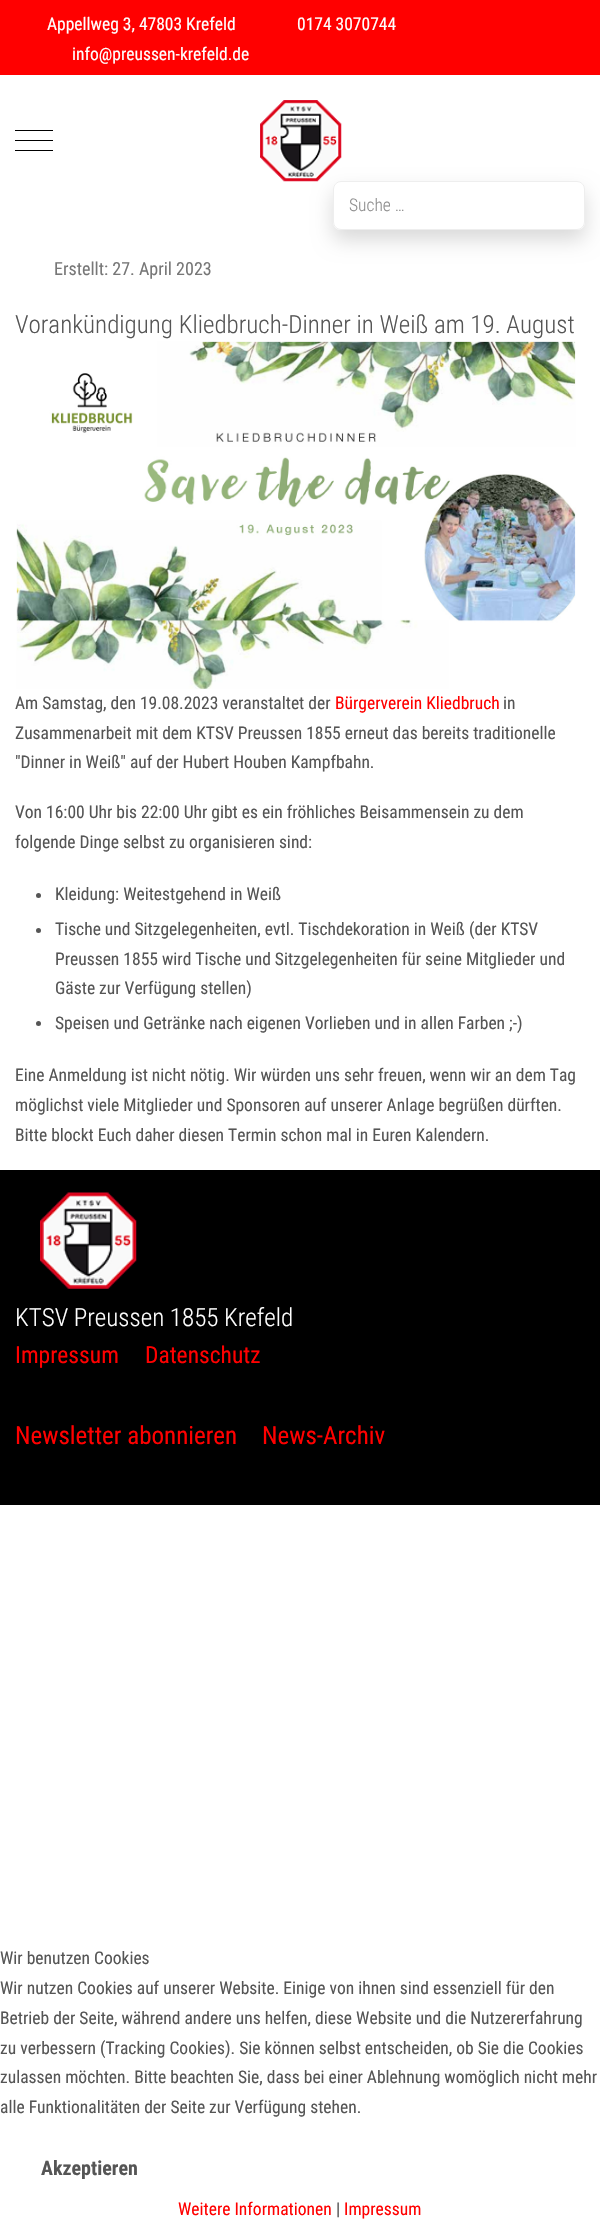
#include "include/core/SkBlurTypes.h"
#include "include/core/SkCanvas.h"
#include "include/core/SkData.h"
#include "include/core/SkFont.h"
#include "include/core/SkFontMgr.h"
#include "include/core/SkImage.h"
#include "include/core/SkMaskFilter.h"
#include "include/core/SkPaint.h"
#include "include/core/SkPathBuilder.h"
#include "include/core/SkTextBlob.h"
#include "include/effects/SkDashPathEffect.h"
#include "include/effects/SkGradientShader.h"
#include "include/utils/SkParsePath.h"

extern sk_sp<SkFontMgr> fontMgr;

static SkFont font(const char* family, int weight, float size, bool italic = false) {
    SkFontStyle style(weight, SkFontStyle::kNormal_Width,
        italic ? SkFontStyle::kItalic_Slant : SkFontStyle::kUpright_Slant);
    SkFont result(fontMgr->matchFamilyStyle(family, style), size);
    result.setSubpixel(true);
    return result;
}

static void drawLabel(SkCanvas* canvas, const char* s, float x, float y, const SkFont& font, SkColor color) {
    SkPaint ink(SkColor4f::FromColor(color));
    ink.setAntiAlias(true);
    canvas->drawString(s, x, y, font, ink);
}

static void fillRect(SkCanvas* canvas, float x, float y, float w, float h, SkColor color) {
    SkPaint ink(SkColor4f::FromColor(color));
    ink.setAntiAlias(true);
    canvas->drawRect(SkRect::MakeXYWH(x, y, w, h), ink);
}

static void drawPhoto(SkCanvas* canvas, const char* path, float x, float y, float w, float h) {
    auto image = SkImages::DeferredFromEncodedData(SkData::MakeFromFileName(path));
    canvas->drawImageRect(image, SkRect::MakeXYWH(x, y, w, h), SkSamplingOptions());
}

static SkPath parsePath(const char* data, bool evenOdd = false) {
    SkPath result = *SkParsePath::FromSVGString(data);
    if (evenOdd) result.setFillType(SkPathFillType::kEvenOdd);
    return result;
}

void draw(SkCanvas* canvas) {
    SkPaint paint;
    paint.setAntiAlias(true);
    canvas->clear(0xFFFFFFFF);
    fillRect(canvas, 0, 0, 600, 75, 0xFFFF0000);
    SkFont font1 = font("Roboto Condensed", 400, 17.5f);
    drawLabel(canvas, "Appellweg 3, 47803 Krefeld", 47, 30, font1, 0xFFFFFFFF);
    drawLabel(canvas, "0174 3070744", 297, 30, font1, 0xFFFFFFFF);
    drawLabel(canvas, "info@preussen-krefeld.de", 72, 60, font1, 0xFFFFFFFF);
    fillRect(canvas, 15, 140, 38, 1, 0xFF000000);
    fillRect(canvas, 15, 130, 38, 1, 0xFF000000);
    fillRect(canvas, 15, 150, 38, 1, 0xFF000000);
    drawPhoto(canvas, "assets/img1.png", 260, 100, 82, 82);
    canvas->save();
    canvas->clipPath(parsePath("M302 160H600V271H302ZM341 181H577C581.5 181 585 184.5 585 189V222C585 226.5 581.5 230 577 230H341C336.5 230 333 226.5 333 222V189C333 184.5 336.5 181 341 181Z", true), true);
    paint.setColor(0x26000000);
    paint.setMaskFilter(SkMaskFilter::MakeBlur(kNormal_SkBlurStyle, 10));
    canvas->drawRoundRect(SkRect::MakeXYWH(333, 191, 252, 49), 8, 8, paint);
    paint.setMaskFilter(nullptr);
    canvas->restore();
    paint.setStroke(true);
    paint.setStrokeWidth(1);
    paint.setColor(0xFFEEEEEE);
    canvas->drawRoundRect(SkRect::MakeXYWH(333.5f, 181.5f, 251, 48), 7.5f, 7.5f, paint);
    SkFont font2 = font("Roboto Condensed", 300, 17.5f);
    drawLabel(canvas, "Suche …", 349, 211, font2, 0xFF8E8E8E);
    SkFont font3 = font("Roboto Condensed", 400, 18);
    drawLabel(canvas, "Erstellt: 27. April 2023", 54, 275, font3, 0xFF777777);
    SkFont font4 = font("Roboto Condensed", 300, 25);
    drawLabel(canvas, "Vorankündigung Kliedbruch-Dinner in Weiß am 19. August", 15, 333, font4, 0xFF555555);
    drawPhoto(canvas, "assets/img2.png", 16, 341, 560, 348);
    drawLabel(canvas, "Am Samstag, den 19.08.2023 veranstaltet der", 15, 709, font1, 0xFF555555);
    drawLabel(canvas, "Bürgerverein Kliedbruch", 335, 709, font1, 0xFFFF0000);
    drawLabel(canvas, "in", 503, 709, font1, 0xFF555555);
    drawLabel(canvas, "Zusammenarbeit mit dem KTSV Preussen 1855 erneut das bereits traditionelle", 15, 739, font1, 0xFF555555);
    drawLabel(canvas, "\"Dinner in Weiß\" auf der Hubert Houben Kampfbahn.", 15, 768, font1, 0xFF555555);
    drawLabel(canvas, "Von 16:00 Uhr bis 22:00 Uhr gibt es ein fröhliches Beisammensein zu dem", 15, 818, font1, 0xFF555555);
    drawLabel(canvas, "folgende Dinge selbst zu organisieren sind:", 15, 848, font1, 0xFF555555);
    paint.setStroke(false);
    paint.setColor(0xFF555555);
    canvas->drawCircle(38.5f, 895.5f, 2.5f, paint);
    drawLabel(canvas, "Kleidung: Weitestgehend in Weiß", 55, 900, font1, 0xFF555555);
    canvas->drawCircle(38.5f, 930.5f, 2.5f, paint);
    drawLabel(canvas, "Tische und Sitzgelegenheiten, evtl. Tischdekoration in Weiß (der KTSV", 55, 935, font1, 0xFF555555);
    drawLabel(canvas, "Preussen 1855 wird Tische und Sitzgelegenheiten für seine Mitglieder und", 55, 965, font1, 0xFF555555);
    drawLabel(canvas, "Gäste zur Verfügung stellen)", 55, 994, font1, 0xFF555555);
    canvas->drawCircle(38.5f, 1023.5f, 2.5f, paint);
    drawLabel(canvas, "Speisen und Getränke nach eigenen Vorlieben und in allen Farben ;-)", 55, 1029, font1, 0xFF555555);
    drawLabel(canvas, "Eine Anmeldung ist nicht nötig. Wir würden uns sehr freuen, wenn wir an dem Tag", 15, 1081, font1, 0xFF555555);
    drawLabel(canvas, "möglichst viele Mitglieder und Sponsoren auf unserer Anlage begrüßen dürften.", 15, 1111, font1, 0xFF555555);
    drawLabel(canvas, "Bitte blockt Euch daher diesen Termin schon mal in Euren Kalendern.", 15, 1141, font1, 0xFF555555);
    fillRect(canvas, 0, 1170, 600, 335, 0xFF000000);
    drawPhoto(canvas, "assets/img3.png", 40, 1192, 97, 97);
    drawLabel(canvas, "KTSV Preussen 1855 Krefeld", 15, 1326, font4, 0xFFFFFFFF);
    SkFont font5 = font("Roboto Condensed", 400, 23.5f);
    drawLabel(canvas, "Impressum", 15, 1363, font5, 0xFFFF0000);
    drawLabel(canvas, "Datenschutz", 145, 1363, font5, 0xFFFF0000);
    SkFont font6 = font("Roboto Condensed", 400, 25);
    drawLabel(canvas, "Newsletter abonnieren", 15, 1444, font6, 0xFFFF0000);
    drawLabel(canvas, "News-Archiv", 262, 1444, font6, 0xFFFF0000);
    drawLabel(canvas, "Wir benutzen Cookies", 0, 1964, font1, 0xFF555555);
    drawLabel(canvas, "Wir nutzen Cookies auf unserer Website. Einige von ihnen sind essenziell für den", 0, 1994, font1, 0xFF555555);
    drawLabel(canvas, "Betrieb der Seite, während andere uns helfen, diese Website und die Nutzererfahrung", 0, 2024, font1, 0xFF555555);
    drawLabel(canvas, "zu verbessern (Tracking Cookies). Sie können selbst entscheiden, ob Sie die Cookies", 0, 2054, font1, 0xFF555555);
    drawLabel(canvas, "zulassen möchten. Bitte beachten Sie, dass bei einer Ablehnung womöglich nicht mehr", 0, 2083, font1, 0xFF555555);
    drawLabel(canvas, "alle Funktionalitäten der Seite zur Verfügung stehen.", 0, 2113, font1, 0xFF555555);
    SkFont font7 = font("Roboto Condensed", 700, 20);
    drawLabel(canvas, "Akzeptieren", 41, 2175, font7, 0xFF555555);
    drawLabel(canvas, "Weitere Informationen", 178, 2215, font1, 0xFFFF0000);
    drawLabel(canvas, "|", 336, 2215, font1, 0xFF555555);
    drawLabel(canvas, "Impressum", 344, 2215, font1, 0xFFFF0000);
}
